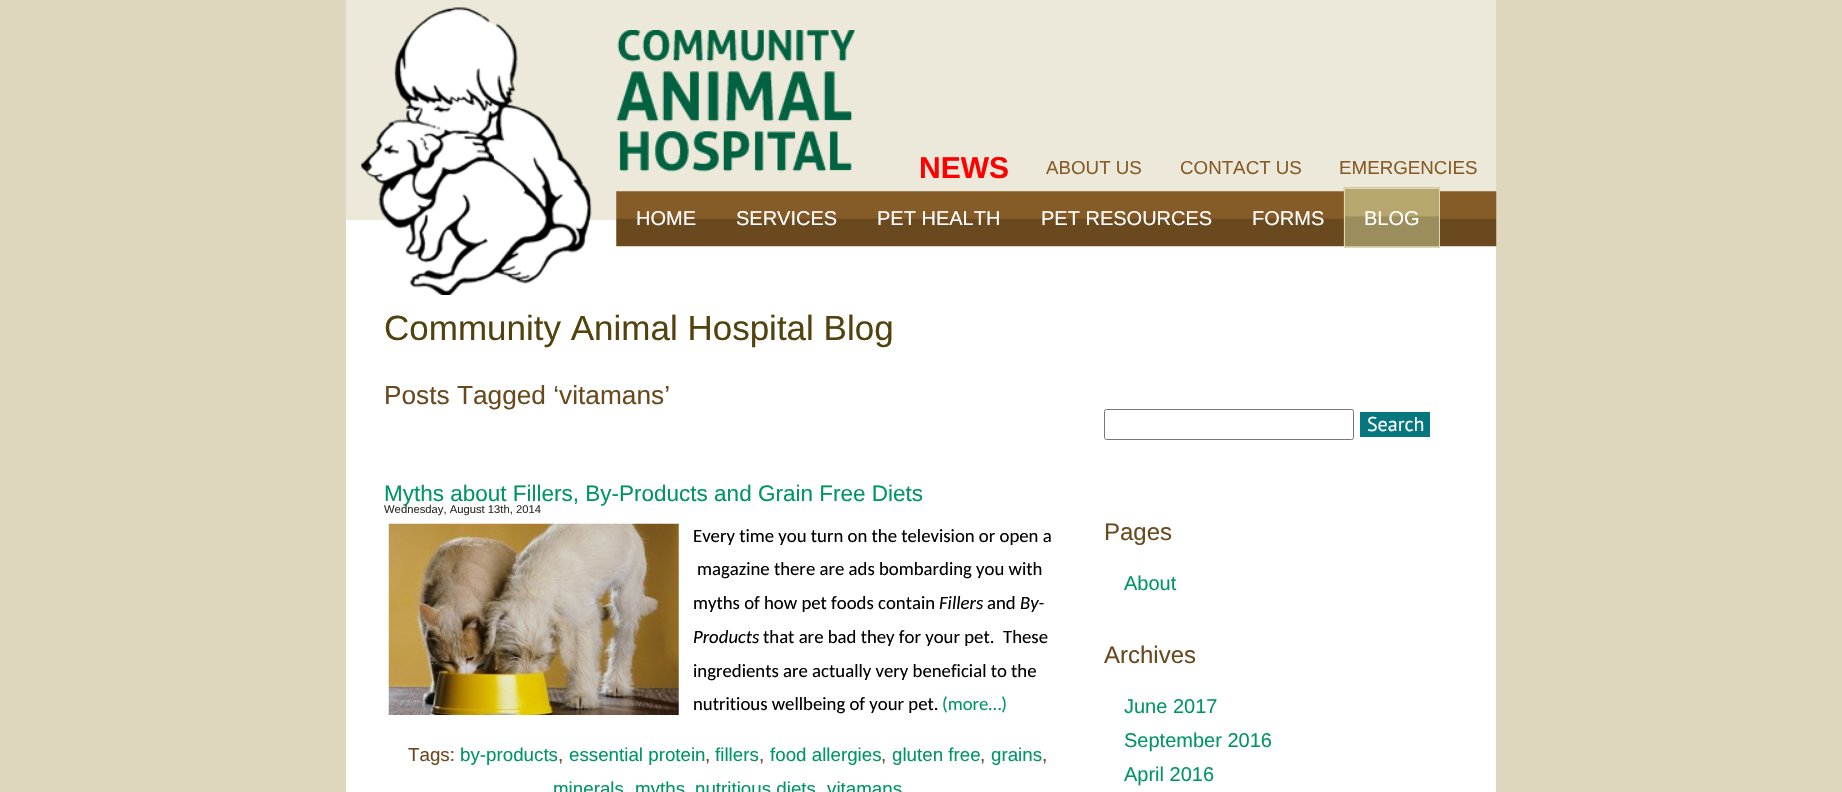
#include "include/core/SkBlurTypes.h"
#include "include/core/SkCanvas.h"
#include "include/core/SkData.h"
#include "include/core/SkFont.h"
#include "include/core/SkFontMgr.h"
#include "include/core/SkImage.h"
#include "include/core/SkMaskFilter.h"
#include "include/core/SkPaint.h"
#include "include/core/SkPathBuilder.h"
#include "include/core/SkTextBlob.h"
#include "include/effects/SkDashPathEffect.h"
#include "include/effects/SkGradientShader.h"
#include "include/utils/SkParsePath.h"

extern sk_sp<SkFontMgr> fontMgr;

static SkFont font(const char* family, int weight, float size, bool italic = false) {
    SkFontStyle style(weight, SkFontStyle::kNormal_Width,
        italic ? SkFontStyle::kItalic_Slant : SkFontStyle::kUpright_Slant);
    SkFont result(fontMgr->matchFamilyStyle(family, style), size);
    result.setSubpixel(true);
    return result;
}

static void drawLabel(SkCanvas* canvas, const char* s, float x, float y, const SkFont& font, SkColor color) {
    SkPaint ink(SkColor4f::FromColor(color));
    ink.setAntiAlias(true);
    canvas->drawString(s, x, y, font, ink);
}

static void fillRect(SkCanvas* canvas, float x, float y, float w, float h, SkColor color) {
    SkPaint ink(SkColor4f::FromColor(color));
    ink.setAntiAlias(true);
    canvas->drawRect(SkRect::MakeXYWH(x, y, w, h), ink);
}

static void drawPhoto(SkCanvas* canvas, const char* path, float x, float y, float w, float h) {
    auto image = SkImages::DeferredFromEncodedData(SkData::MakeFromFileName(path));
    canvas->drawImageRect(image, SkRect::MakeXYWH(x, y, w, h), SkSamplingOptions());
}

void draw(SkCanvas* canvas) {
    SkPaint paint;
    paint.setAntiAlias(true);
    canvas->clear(0xFFDFD7BD);
    fillRect(canvas, 346, 220, 1150, 572, 0xFFFFFFFF);
    fillRect(canvas, 346, 0, 1150, 220, 0xFFEDE9DA);
    drawPhoto(canvas, "assets/img1.png", 361, 7, 231, 288);
    drawPhoto(canvas, "assets/img2.png", 616, 30, 239, 142);
    SkFont font1 = font("Liberation Sans", 700, 30);
    drawLabel(canvas, "NEWS", 919, 178, font1, 0xFFFF0000);
    SkFont font2 = font("Liberation Sans", 400, 18.75f);
    drawLabel(canvas, "ABOUT US", 1046, 174, font2, 0xFF855B27);
    drawLabel(canvas, "CONTACT US", 1180, 174, font2, 0xFF855B27);
    drawLabel(canvas, "EMERGENCIES", 1339, 174, font2, 0xFF855B27);
    drawPhoto(canvas, "assets/img3.png", 616, 191, 881, 56);
    SkFont font3 = font("Liberation Sans", 400, 20);
    drawLabel(canvas, "HOME", 636, 225, font3, 0xFFFFFFFF);
    drawLabel(canvas, "SERVICES", 736, 225, font3, 0xFFFFFFFF);
    drawLabel(canvas, "PET HEALTH", 877, 225, font3, 0xFFFFFFFF);
    drawLabel(canvas, "PET RESOURCES", 1041, 225, font3, 0xFFFFFFFF);
    drawLabel(canvas, "FORMS", 1252, 225, font3, 0xFFFFFFFF);
    drawPhoto(canvas, "assets/img4.png", 1343, 187, 97, 60);
    paint.setStroke(true);
    paint.setStrokeWidth(1);
    paint.setColor(0xFFDED6B4);
    canvas->drawRect(SkRect::MakeXYWH(1344.5f, 188.5f, 95, 59), paint);
    drawLabel(canvas, "BLOG", 1364, 225, font3, 0xFFFFFFFF);
    SkFont font4 = font("Liberation Sans", 400, 35);
    drawLabel(canvas, "Community Animal Hospital Blog", 384, 340, font4, 0xFF52420D);
    SkFont font5 = font("Liberation Sans", 400, 26.25f);
    drawLabel(canvas, "Posts Tagged ‘vitamans’", 384, 404, font5, 0xFF6A491F);
    SkFont font6 = font("Liberation Sans", 400, 22.5f);
    drawLabel(canvas, "Myths about Fillers, By-Products and Grain Free Diets", 384, 501, font6, 0xFF009662);
    SkFont font7 = font("Liberation Sans", 400, 11.25f);
    drawLabel(canvas, "Wednesday, August 13th, 2014", 384, 513, font7, 0xFF2E2D2A);
    drawPhoto(canvas, "assets/img5.png", 388, 523, 291, 192);
    SkFont font8 = font("Carlito", 400, 18.75f);
    drawLabel(canvas, "Every time you turn on the television or open a", 693, 542, font8, 0xFF000000);
    drawLabel(canvas, "magazine there are ads bombarding you with", 697, 575, font8, 0xFF000000);
    drawLabel(canvas, "myths of how pet foods contain", 693, 609, font8, 0xFF000000);
    SkFont font9 = font("Carlito", 400, 18.75f, true);
    drawLabel(canvas, "Fillers", 939, 609, font9, 0xFF000000);
    drawLabel(canvas, "and", 987, 609, font8, 0xFF000000);
    drawLabel(canvas, "By-", 1020, 609, font9, 0xFF000000);
    drawLabel(canvas, "Products", 693, 643, font9, 0xFF000000);
    drawLabel(canvas, "that are bad they for your pet.", 763, 643, font8, 0xFF000000);
    drawLabel(canvas, "These", 1003, 643, font8, 0xFF000000);
    drawLabel(canvas, "ingredients are actually very beneficial to the", 693, 677, font8, 0xFF000000);
    drawLabel(canvas, "nutritious wellbeing of your pet.", 693, 710, font8, 0xFF000000);
    drawLabel(canvas, "(more…)", 942, 710, font8, 0xFF009662);
    drawLabel(canvas, "Tags:", 408, 761, font2, 0xFF6A491F);
    drawLabel(canvas, "by-products", 460, 761, font2, 0xFF009662);
    drawLabel(canvas, ",", 558, 761, font2, 0xFF6A491F);
    drawLabel(canvas, "essential protein", 569, 761, font2, 0xFF009662);
    drawLabel(canvas, ",", 705, 761, font2, 0xFF6A491F);
    drawLabel(canvas, "fillers", 715, 761, font2, 0xFF009662);
    drawLabel(canvas, ",", 759, 761, font2, 0xFF6A491F);
    drawLabel(canvas, "food allergies", 770, 761, font2, 0xFF009662);
    drawLabel(canvas, ",", 881, 761, font2, 0xFF6A491F);
    drawLabel(canvas, "gluten free", 892, 761, font2, 0xFF009662);
    drawLabel(canvas, ",", 980, 761, font2, 0xFF6A491F);
    drawLabel(canvas, "grains", 991, 761, font2, 0xFF009662);
    drawLabel(canvas, ",", 1042, 761, font2, 0xFF6A491F);
    drawLabel(canvas, "minerals", 553, 795, font2, 0xFF009662);
    drawLabel(canvas, "myths", 635, 795, font2, 0xFF009662);
    drawLabel(canvas, "nutritious diets", 695, 795, font2, 0xFF009662);
    drawLabel(canvas, "vitamans", 827, 795, font2, 0xFF009662);
    paint.setColor(0xFF767676);
    canvas->drawRoundRect(SkRect::MakeXYWH(1104.5f, 409.5f, 249, 30), 2, 2, paint);
    fillRect(canvas, 1360, 412, 70, 25, 0xFF06777F);
    SkFont font10 = font("PT Sans", 400, 20);
    drawLabel(canvas, "Search", 1367, 431, font10, 0xFFFFFFFF);
    SkFont font11 = font("Liberation Sans", 400, 24);
    drawLabel(canvas, "Pages", 1104, 540, font11, 0xFF6A491F);
    drawLabel(canvas, "About", 1124, 590, font3, 0xFF009662);
    drawLabel(canvas, "Archives", 1104, 663, font11, 0xFF6A491F);
    drawLabel(canvas, "June 2017", 1124, 713, font3, 0xFF009662);
    drawLabel(canvas, "September 2016", 1124, 747, font3, 0xFF009662);
    drawLabel(canvas, "April 2016", 1124, 781, font3, 0xFF009662);
}
